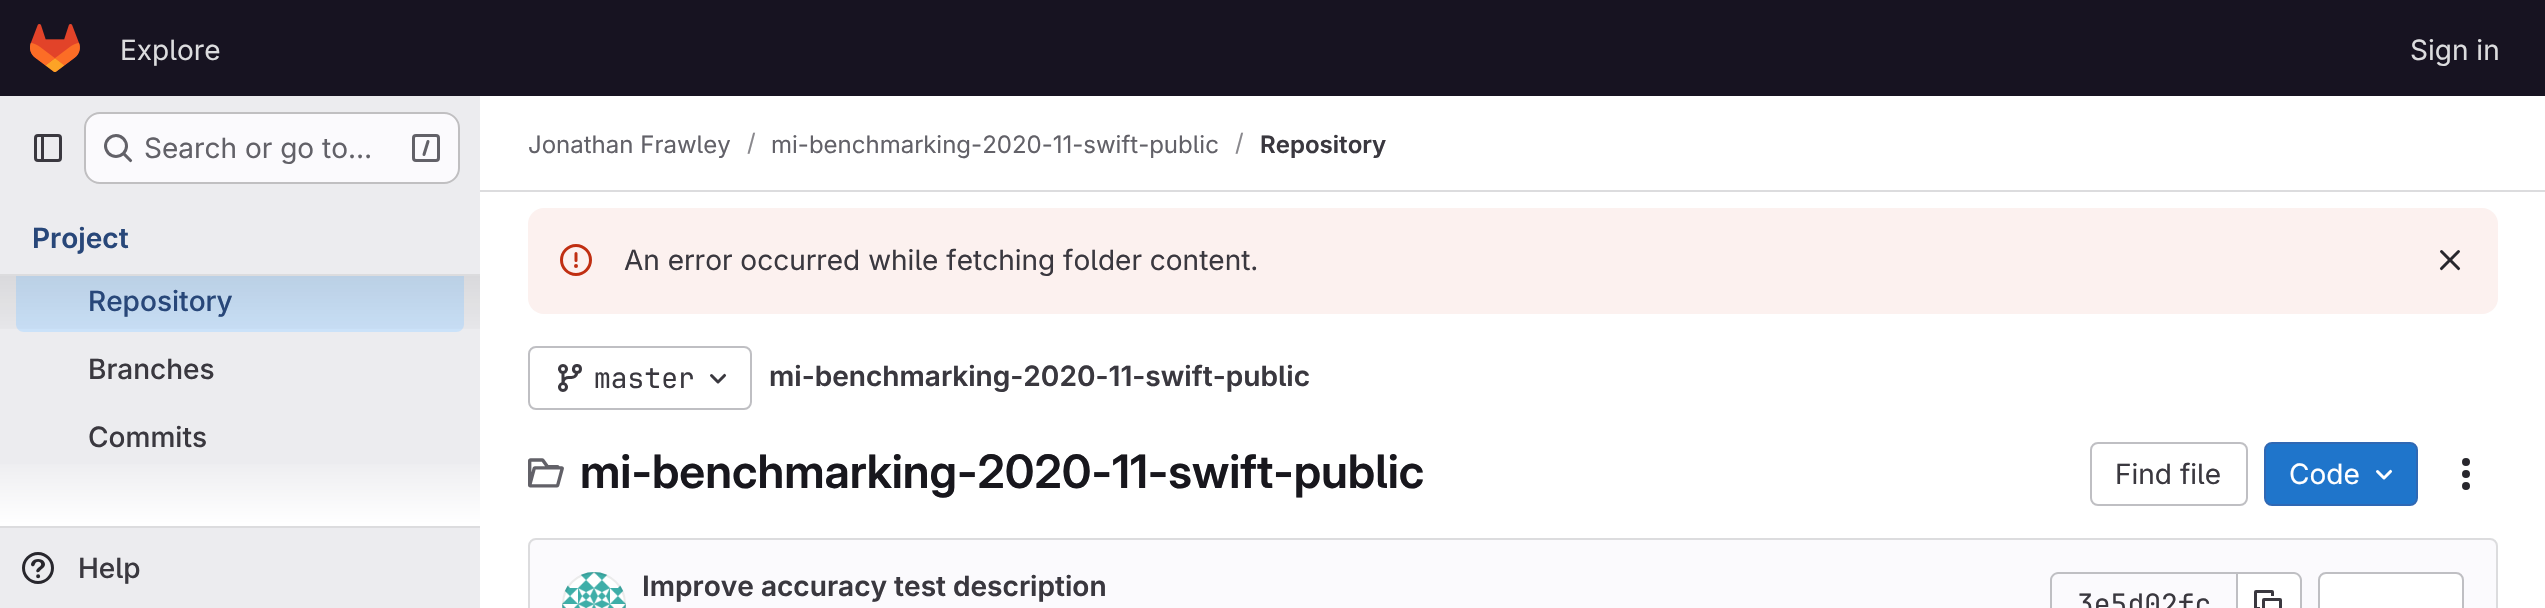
#include "include/core/SkBlurTypes.h"
#include "include/core/SkCanvas.h"
#include "include/core/SkData.h"
#include "include/core/SkFont.h"
#include "include/core/SkFontMgr.h"
#include "include/core/SkImage.h"
#include "include/core/SkMaskFilter.h"
#include "include/core/SkPaint.h"
#include "include/core/SkPathBuilder.h"
#include "include/core/SkTextBlob.h"
#include "include/effects/SkDashPathEffect.h"
#include "include/effects/SkGradientShader.h"
#include "include/utils/SkParsePath.h"

extern sk_sp<SkFontMgr> fontMgr;

static SkFont font(const char* family, int weight, float size, bool italic = false) {
    SkFontStyle style(weight, SkFontStyle::kNormal_Width,
        italic ? SkFontStyle::kItalic_Slant : SkFontStyle::kUpright_Slant);
    SkFont result(fontMgr->matchFamilyStyle(family, style), size);
    result.setSubpixel(true);
    return result;
}

static void drawLabel(SkCanvas* canvas, const char* s, float x, float y, const SkFont& font, SkColor color) {
    SkPaint ink(SkColor4f::FromColor(color));
    ink.setAntiAlias(true);
    canvas->drawString(s, x, y, font, ink);
}

static void fillRect(SkCanvas* canvas, float x, float y, float w, float h, SkColor color) {
    SkPaint ink(SkColor4f::FromColor(color));
    ink.setAntiAlias(true);
    canvas->drawRect(SkRect::MakeXYWH(x, y, w, h), ink);
}

static void fillRRect(SkCanvas* canvas, float x, float y, float w, float h, float radius, SkColor color) {
    SkPaint ink(SkColor4f::FromColor(color));
    ink.setAntiAlias(true);
    canvas->drawRoundRect(SkRect::MakeXYWH(x, y, w, h), radius, radius, ink);
}

static void drawPhoto(SkCanvas* canvas, const char* path, float x, float y, float w, float h) {
    auto image = SkImages::DeferredFromEncodedData(SkData::MakeFromFileName(path));
    canvas->drawImageRect(image, SkRect::MakeXYWH(x, y, w, h), SkSamplingOptions());
}

static SkPath parsePath(const char* data, bool evenOdd = false) {
    SkPath result = *SkParsePath::FromSVGString(data);
    if (evenOdd) result.setFillType(SkPathFillType::kEvenOdd);
    return result;
}

void draw(SkCanvas* canvas) {
    SkPaint paint;
    paint.setAntiAlias(true);
    canvas->clear(0xFFFFFFFF);
    fillRect(canvas, 0, 0, 2545, 96, 0xFF171321);
    drawPhoto(canvas, "assets/img1.png", 30, 24, 50, 48);
    SkFont font1 = font("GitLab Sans", 400, 28);
    drawLabel(canvas, "Explore", 120, 60, font1, 0xFFDCDCDE);
    drawLabel(canvas, "Sign in", 2410, 60, font1, 0xFFDCDCDE);
    fillRect(canvas, 0, 96, 480, 512, 0xFFECECEF);
    drawPhoto(canvas, "assets/img2.png", 34, 134, 28, 28);
    fillRRect(canvas, 84, 112, 376, 72, 16, 0xFFFBFAFD);
    paint.setStroke(true);
    paint.setStrokeWidth(2);
    paint.setColor(0x3D050506);
    canvas->drawRoundRect(SkRect::MakeXYWH(85, 113, 374, 70), 15, 15, paint);
    drawPhoto(canvas, "assets/img3.png", 104, 134, 29, 29);
    drawLabel(canvas, "Search or go to…", 144, 158, font1, 0xFF626168);
    drawPhoto(canvas, "assets/img4.png", 412, 134, 28, 28);
    SkFont font2 = font("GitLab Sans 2", 600, 28);
    drawLabel(canvas, "Project", 32, 248, font2, 0xFF284779);
    fillRect(canvas, 0, 274, 480, 2, 0xFFDCDCDE);
    fillRect(canvas, 0, 526, 480, 2, 0xFFDCDCDE);
    paint.setStroke(false);
    paint.setColor(0xFFCBE2F9);
    canvas->drawPath(parsePath("M16 276H464V324C464 328.5 460.5 332 456 332H24C19.5 332 16 328.5 16 324Z"), paint);
    {
        const SkColor colors[] = {0x14050506, 0x00050506};
        const float stops[] = {0, 1};
        const SkPoint ends[] = {{240, 276}, {240, 348}};
        paint.setShader(SkGradientShader::MakeLinear(ends, colors, stops, 2, SkTileMode::kClamp));
        paint.setAlpha(255);
    }
    canvas->drawRect(SkRect::MakeXYWH(0, 276, 480, 53), paint);
    SkFont font3 = font("GitLab Sans", 500, 28);
    drawLabel(canvas, "Repository", 88, 311, font3, 0xFF284779);
    drawLabel(canvas, "Branches", 88, 379, font3, 0xFF3A383F);
    drawLabel(canvas, "Commits", 88, 447, font3, 0xFF3A383F);
    {
        const SkColor colors[] = {0x00FFFFFF, 0xFFFFFFFF};
        const float stops[] = {0, 1};
        const SkPoint ends[] = {{240, 454}, {240, 526}};
        paint.setShader(SkGradientShader::MakeLinear(ends, colors, stops, 2, SkTileMode::kClamp));
        paint.setAlpha(255);
    }
    canvas->drawRect(SkRect::MakeXYWH(0, 464, 480, 62), paint);
    drawPhoto(canvas, "assets/img5.png", 22, 552, 32, 32);
    drawLabel(canvas, "Help", 78, 578, font3, 0xFF3A383F);
    fillRect(canvas, 480, 190, 2065, 2, 0xFFDCDCDE);
    SkFont font4 = font("GitLab Sans", 400, 24);
    drawLabel(canvas, "Jonathan Frawley", 528, 153, font4, 0xFF626168);
    drawLabel(canvas, "/", 747, 151, font4, 0xFF89888D);
    drawLabel(canvas, "mi-benchmarking-2020-11-swift-public", 771, 153, font4, 0xFF626168);
    drawLabel(canvas, "/", 1235, 151, font4, 0xFF89888D);
    SkFont font5 = font("GitLab Sans 2", 600, 24);
    drawLabel(canvas, "Repository", 1260, 153, font5, 0xFF3A383F);
    fillRRect(canvas, 528, 208, 1970, 106, 16, 0xFFFCF1EF);
    drawPhoto(canvas, "assets/img6.png", 560, 244, 32, 32);
    drawLabel(canvas, "An error occurred while fetching folder content.", 624, 270, font1, 0xFF3A383F);
    drawPhoto(canvas, "assets/img7.png", 2439, 250, 22, 21);
    paint.setStroke(true);
    paint.setShader(nullptr);
    paint.setColor(0xFFBFBFC3);
    canvas->drawRoundRect(SkRect::MakeXYWH(529, 347, 222, 62), 7, 7, paint);
    drawPhoto(canvas, "assets/img8.png", 558, 364, 24, 28);
    SkFont font6 = font("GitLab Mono", 400, 28);
    drawLabel(canvas, "master", 594, 388, font6, 0xFF3A383F);
    drawPhoto(canvas, "assets/img9.png", 710, 373, 17, 11);
    drawLabel(canvas, "mi-benchmarking-2020-11-swift-public", 769, 386, font2, 0xFF3A383F);
    drawPhoto(canvas, "assets/img10.png", 528, 458, 36, 30);
    SkFont font7 = font("GitLab Sans", 600, 46);
    drawLabel(canvas, "mi-benchmarking-2020-11-swift-public", 580, 488, font7, 0xFF18171D);
    canvas->drawRoundRect(SkRect::MakeXYWH(2091, 443, 156, 62), 7, 7, paint);
    drawLabel(canvas, "Find file", 2115, 484, font1, 0xFF3A383F);
    paint.setStroke(false);
    paint.setColor(0xFF1F75CB);
    canvas->drawRoundRect(SkRect::MakeXYWH(2265, 443, 152, 62), 7, 7, paint);
    paint.setStroke(true);
    paint.setColor(0xFF2F68B4);
    canvas->drawRoundRect(SkRect::MakeXYWH(2265, 443, 152, 62), 7, 7, paint);
    drawLabel(canvas, "Code", 2289, 484, font1, 0xFFFFFFFF);
    drawPhoto(canvas, "assets/img11.png", 2376, 469, 17, 11);
    drawPhoto(canvas, "assets/img12.png", 2462, 458, 8, 32);
    paint.setStroke(false);
    paint.setColor(0xFFFBFAFD);
    canvas->drawRoundRect(SkRect::MakeXYWH(529, 539, 1968, 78), 7, 7, paint);
    paint.setStroke(true);
    paint.setColor(0xFFDCDCDE);
    canvas->drawRoundRect(SkRect::MakeXYWH(529, 539, 1968, 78), 7, 7, paint);
    drawPhoto(canvas, "assets/img13.png", 562, 572, 64, 36);
    paint.setColor(0x14050506);
    canvas->drawCircle(594, 604, 31, paint);
    drawLabel(canvas, "Improve accuracy test description", 642, 596, font2, 0xFF3A383F);
    paint.setStroke(false);
    paint.setColor(0xFFBFBFC3);
    canvas->drawPath(parsePath("M2058 572H2236V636H2058C2054 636 2050 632 2050 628V580C2050 576 2054 572 2058 572ZM2058 574H2236V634H2058C2055 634 2052 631 2052 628V580C2052 577 2055 574 2058 574Z", true), paint);
    drawLabel(canvas, "3e5d02fc", 2077, 614, font6, 0xFF3A383F);
    paint.setColor(0xFFFFFFFF);
    canvas->drawPath(parsePath("M2238 574H2294C2297.5 574 2300 576.5 2300 580V608C2300 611.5 2297.5 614 2294 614H2238Z"), paint);
    paint.setColor(0xFFBFBFC3);
    canvas->drawPath(parsePath("M2238 572H2294C2298 572 2302 576 2302 580V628C2302 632 2298 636 2294 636H2238ZM2238 574H2294C2297 574 2300 577 2300 580V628C2300 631 2297 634 2294 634H2238Z", true), paint);
    fillRect(canvas, 2236, 572, 2, 36, 0xFFBFBFC3);
    drawPhoto(canvas, "assets/img14.png", 2254, 590, 28, 18);
    paint.setColor(0xFFFFFFFF);
    canvas->drawRoundRect(SkRect::MakeXYWH(2319, 573, 144, 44), 7, 7, paint);
    paint.setStroke(true);
    paint.setColor(0xFFBFBFC3);
    canvas->drawRoundRect(SkRect::MakeXYWH(2319, 573, 144, 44), 7, 7, paint);
}
